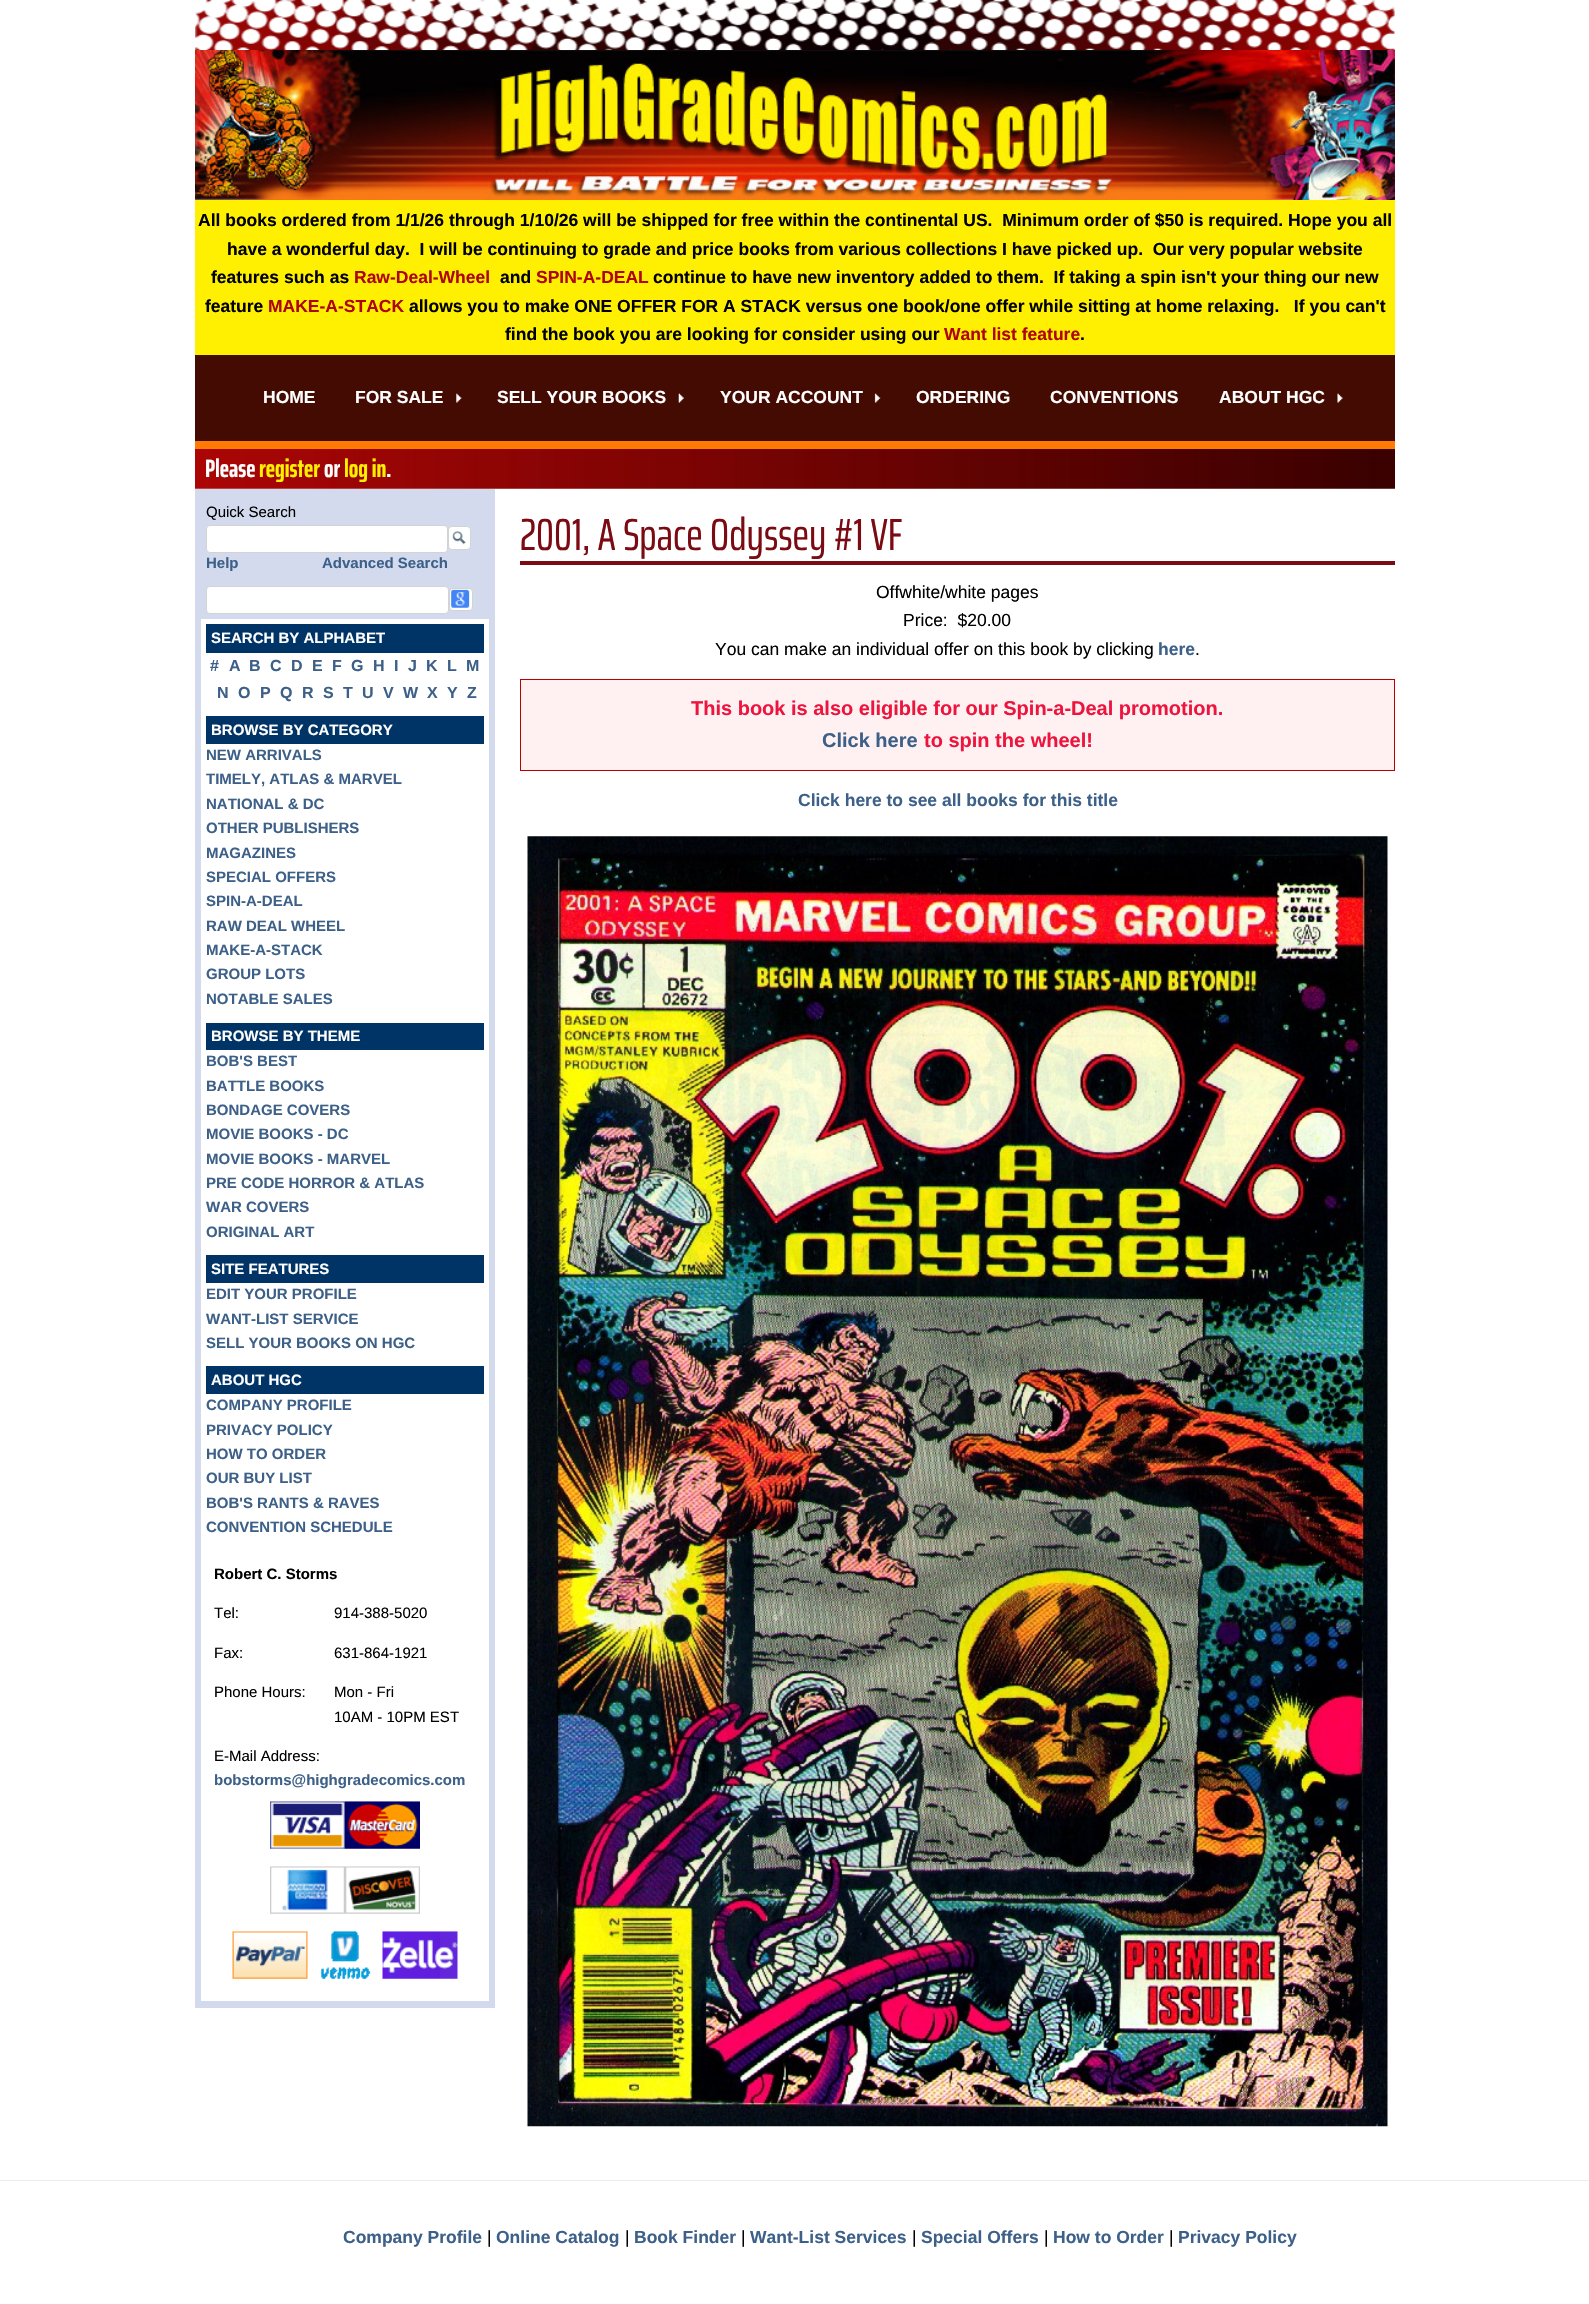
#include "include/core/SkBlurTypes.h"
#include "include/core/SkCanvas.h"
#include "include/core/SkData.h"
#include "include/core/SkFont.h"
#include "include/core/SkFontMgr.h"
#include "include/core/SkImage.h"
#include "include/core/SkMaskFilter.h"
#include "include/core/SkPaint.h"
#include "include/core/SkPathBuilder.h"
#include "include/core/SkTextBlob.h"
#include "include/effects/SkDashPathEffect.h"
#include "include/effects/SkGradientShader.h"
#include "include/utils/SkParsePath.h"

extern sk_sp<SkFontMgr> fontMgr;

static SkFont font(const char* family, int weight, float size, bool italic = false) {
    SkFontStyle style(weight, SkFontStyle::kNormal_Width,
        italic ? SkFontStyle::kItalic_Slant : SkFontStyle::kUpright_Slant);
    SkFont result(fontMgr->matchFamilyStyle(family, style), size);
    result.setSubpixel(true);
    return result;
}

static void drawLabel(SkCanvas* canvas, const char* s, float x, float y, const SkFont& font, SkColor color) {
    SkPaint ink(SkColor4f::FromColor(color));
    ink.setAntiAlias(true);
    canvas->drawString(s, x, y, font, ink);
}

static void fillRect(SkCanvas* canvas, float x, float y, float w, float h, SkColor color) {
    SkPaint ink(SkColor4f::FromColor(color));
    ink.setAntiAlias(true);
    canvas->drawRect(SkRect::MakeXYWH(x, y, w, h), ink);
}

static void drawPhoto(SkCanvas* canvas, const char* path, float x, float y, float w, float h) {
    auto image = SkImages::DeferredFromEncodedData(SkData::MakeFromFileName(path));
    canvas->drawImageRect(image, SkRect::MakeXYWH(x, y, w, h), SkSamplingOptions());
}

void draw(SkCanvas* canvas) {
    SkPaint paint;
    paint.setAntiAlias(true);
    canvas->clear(0xFFFFFFFF);
    drawPhoto(canvas, "assets/img1.png", 195, 0, 1200, 50);
    drawPhoto(canvas, "assets/img2.png", 195, 50, 1200, 150);
    fillRect(canvas, 195, 200, 1200, 155, 0xFFFFF001);
    SkFont font1 = font("Liberation Sans", 700, 17.5f);
    drawLabel(canvas, "All books ordered from 1/1/26 through 1/10/26 will be shipped for free within the continental US.  Minimum order of $50 is required. Hope you all", 198, 226, font1, 0xFF000000);
    drawLabel(canvas, "have a wonderful day.  I will be continuing to grade and price books from various collections I have picked up.  Our very popular website", 227, 255, font1, 0xFF000000);
    drawLabel(canvas, "features such as", 211, 283, font1, 0xFF000000);
    drawLabel(canvas, "Raw-Deal-Wheel", 354, 283, font1, 0xFFAE0606);
    drawLabel(canvas, "and", 500, 283, font1, 0xFF000000);
    drawLabel(canvas, "SPIN-A-DEAL", 536, 283, font1, 0xFFAE0606);
    drawLabel(canvas, "continue to have new inventory added to them.  If taking a spin isn't your thing our new", 653, 283, font1, 0xFF000000);
    drawLabel(canvas, "feature", 205, 312, font1, 0xFF000000);
    drawLabel(canvas, "MAKE-A-STACK", 268, 312, font1, 0xFFAE0606);
    drawLabel(canvas, "allows you to make ONE OFFER FOR A STACK versus one book/one offer while sitting at home relaxing.   If you can't", 409, 312, font1, 0xFF000000);
    drawLabel(canvas, "find the book you are looking for consider using our", 505, 340, font1, 0xFF000000);
    drawLabel(canvas, "Want list feature", 944, 340, font1, 0xFFAE0606);
    drawLabel(canvas, ".", 1080, 340, font1, 0xFF000000);
    fillRect(canvas, 195, 355, 1200, 86, 0xFF440B02);
    drawLabel(canvas, "HOME", 263, 403, font1, 0xFFFFFFFF);
    drawPhoto(canvas, "assets/img3.png", 456, 393, 6, 10);
    drawLabel(canvas, "FOR SALE", 355, 403, font1, 0xFFFFFFFF);
    drawPhoto(canvas, "assets/img4.png", 678, 393, 6, 10);
    drawLabel(canvas, "SELL YOUR BOOKS", 497, 403, font1, 0xFFFFFFFF);
    drawPhoto(canvas, "assets/img5.png", 874, 393, 7, 10);
    drawLabel(canvas, "YOUR ACCOUNT", 720, 403, font1, 0xFFFFFFFF);
    drawLabel(canvas, "ORDERING", 916, 403, font1, 0xFFFFFFFF);
    drawLabel(canvas, "CONVENTIONS", 1050, 403, font1, 0xFFFFFFFF);
    drawPhoto(canvas, "assets/img6.png", 1337, 393, 6, 10);
    drawLabel(canvas, "ABOUT HGC", 1219, 403, font1, 0xFFFFFFFF);
    drawPhoto(canvas, "assets/img7.png", 195, 449, 1200, 40);
    fillRect(canvas, 195, 441, 1200, 8, 0xFFFF7A04);
    SkFont font2 = font("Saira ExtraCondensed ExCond", 700, 25);
    drawLabel(canvas, "Please", 205, 477, font2, 0xFFFFFFFF);
    drawLabel(canvas, "register", 259, 477, font2, 0xFFFFF001);
    drawLabel(canvas, "or", 324, 477, font2, 0xFFFFFFFF);
    drawLabel(canvas, "log in", 344, 477, font2, 0xFFFFF001);
    drawLabel(canvas, ".", 386, 477, font2, 0xFFFFFFFF);
    fillRect(canvas, 195, 489, 300, 1519, 0xFFD3DAED);
    SkFont font3 = font("Liberation Sans", 400, 15);
    drawLabel(canvas, "Quick Search", 206, 517, font3, 0xFF000000);
    paint.setColor(0xFFFFFFFF);
    canvas->drawRoundRect(SkRect::MakeXYWH(206.5f, 525.5f, 241, 27), 3.5f, 3.5f, paint);
    paint.setStroke(true);
    paint.setStrokeWidth(1);
    paint.setColor(0xFFD3D3D3);
    canvas->drawRoundRect(SkRect::MakeXYWH(206.5f, 525.5f, 241, 27), 3.5f, 3.5f, paint);
    paint.setStroke(false);
    paint.setColor(0xFFFFFFFF);
    canvas->drawRoundRect(SkRect::MakeXYWH(448.5f, 526.5f, 22, 23), 3.5f, 3.5f, paint);
    paint.setStroke(true);
    paint.setColor(0xFFD3D3D3);
    canvas->drawRoundRect(SkRect::MakeXYWH(448.5f, 526.5f, 22, 23), 3.5f, 3.5f, paint);
    drawPhoto(canvas, "assets/img8.png", 452, 531, 14, 14);
    SkFont font4 = font("Liberation Sans", 700, 15);
    drawLabel(canvas, "Help", 206, 568, font4, 0xFF3D6088);
    drawLabel(canvas, "Advanced Search", 322, 568, font4, 0xFF3D6088);
    paint.setStroke(false);
    paint.setColor(0xFFFFFFFF);
    canvas->drawRoundRect(SkRect::MakeXYWH(206.5f, 586.5f, 242, 27), 3.5f, 3.5f, paint);
    paint.setStroke(true);
    paint.setColor(0xFFD3D3D3);
    canvas->drawRoundRect(SkRect::MakeXYWH(206.5f, 586.5f, 242, 27), 3.5f, 3.5f, paint);
    paint.setStroke(false);
    paint.setColor(0xFFFFFFFF);
    canvas->drawRoundRect(SkRect::MakeXYWH(449.5f, 588.5f, 23, 22), 3.5f, 3.5f, paint);
    paint.setStroke(true);
    paint.setColor(0xFFD3D3D3);
    canvas->drawRoundRect(SkRect::MakeXYWH(449.5f, 588.5f, 23, 22), 3.5f, 3.5f, paint);
    drawPhoto(canvas, "assets/img9.png", 451, 589, 19, 19);
    fillRect(canvas, 201, 619, 288, 1382, 0xFFFFFFFF);
    fillRect(canvas, 206, 624, 278, 29, 0xFF003466);
    drawLabel(canvas, "SEARCH BY ALPHABET", 211, 643, font4, 0xFFFFFFFF);
    SkFont font5 = font("Liberation Sans", 700, 16);
    drawLabel(canvas, "#", 210, 671, font5, 0xFF3D6088);
    drawLabel(canvas, "A", 229, 671, font5, 0xFF3D6088);
    drawLabel(canvas, "B", 249, 671, font5, 0xFF3D6088);
    drawLabel(canvas, "C", 270, 671, font5, 0xFF3D6088);
    drawLabel(canvas, "D", 291, 671, font5, 0xFF3D6088);
    drawLabel(canvas, "E", 312, 671, font5, 0xFF3D6088);
    drawLabel(canvas, "F", 332, 671, font5, 0xFF3D6088);
    drawLabel(canvas, "G", 351, 671, font5, 0xFF3D6088);
    drawLabel(canvas, "H", 373, 671, font5, 0xFF3D6088);
    drawLabel(canvas, "I", 394, 671, font5, 0xFF3D6088);
    drawLabel(canvas, "J", 408, 671, font5, 0xFF3D6088);
    drawLabel(canvas, "K", 426, 671, font5, 0xFF3D6088);
    drawLabel(canvas, "L", 447, 671, font5, 0xFF3D6088);
    drawLabel(canvas, "M", 466, 671, font5, 0xFF3D6088);
    drawLabel(canvas, "N", 217, 698, font5, 0xFF3D6088);
    drawLabel(canvas, "O", 238, 698, font5, 0xFF3D6088);
    drawLabel(canvas, "P", 260, 698, font5, 0xFF3D6088);
    drawLabel(canvas, "Q", 280, 698, font5, 0xFF3D6088);
    drawLabel(canvas, "R", 302, 698, font5, 0xFF3D6088);
    drawLabel(canvas, "S", 323, 698, font5, 0xFF3D6088);
    drawLabel(canvas, "T", 343, 698, font5, 0xFF3D6088);
    drawLabel(canvas, "U", 362, 698, font5, 0xFF3D6088);
    drawLabel(canvas, "V", 383, 698, font5, 0xFF3D6088);
    drawLabel(canvas, "W", 403, 698, font5, 0xFF3D6088);
    drawLabel(canvas, "X", 427, 698, font5, 0xFF3D6088);
    drawLabel(canvas, "Y", 447, 698, font5, 0xFF3D6088);
    drawLabel(canvas, "Z", 467, 698, font5, 0xFF3D6088);
    fillRect(canvas, 206, 716, 278, 28, 0xFF003466);
    drawLabel(canvas, "BROWSE BY CATEGORY", 211, 735, font4, 0xFFFFFFFF);
    drawLabel(canvas, "NEW ARRIVALS", 206, 760, font4, 0xFF3D6088);
    drawLabel(canvas, "TIMELY, ATLAS & MARVEL", 206, 784, font4, 0xFF3D6088);
    drawLabel(canvas, "NATIONAL & DC", 206, 809, font4, 0xFF3D6088);
    drawLabel(canvas, "OTHER PUBLISHERS", 206, 833, font4, 0xFF3D6088);
    drawLabel(canvas, "MAGAZINES", 206, 858, font4, 0xFF3D6088);
    drawLabel(canvas, "SPECIAL OFFERS", 206, 882, font4, 0xFF3D6088);
    drawLabel(canvas, "SPIN-A-DEAL", 206, 906, font4, 0xFF3D6088);
    drawLabel(canvas, "RAW DEAL WHEEL", 206, 931, font4, 0xFF3D6088);
    drawLabel(canvas, "MAKE-A-STACK", 206, 955, font4, 0xFF3D6088);
    drawLabel(canvas, "GROUP LOTS", 206, 979, font4, 0xFF3D6088);
    drawLabel(canvas, "NOTABLE SALES", 206, 1004, font4, 0xFF3D6088);
    fillRect(canvas, 206, 1023, 278, 27, 0xFF003466);
    drawLabel(canvas, "BROWSE BY THEME", 211, 1041, font4, 0xFFFFFFFF);
    drawLabel(canvas, "BOB'S BEST", 206, 1066, font4, 0xFF3D6088);
    drawLabel(canvas, "BATTLE BOOKS", 206, 1091, font4, 0xFF3D6088);
    drawLabel(canvas, "BONDAGE COVERS", 206, 1115, font4, 0xFF3D6088);
    drawLabel(canvas, "MOVIE BOOKS - DC", 206, 1139, font4, 0xFF3D6088);
    drawLabel(canvas, "MOVIE BOOKS - MARVEL", 206, 1164, font4, 0xFF3D6088);
    drawLabel(canvas, "PRE CODE HORROR & ATLAS", 206, 1188, font4, 0xFF3D6088);
    drawLabel(canvas, "WAR COVERS", 206, 1212, font4, 0xFF3D6088);
    drawLabel(canvas, "ORIGINAL ART", 206, 1237, font4, 0xFF3D6088);
    fillRect(canvas, 206, 1255, 278, 28, 0xFF003466);
    drawLabel(canvas, "SITE FEATURES", 211, 1274, font4, 0xFFFFFFFF);
    drawLabel(canvas, "EDIT YOUR PROFILE", 206, 1299, font4, 0xFF3D6088);
    drawLabel(canvas, "WANT-LIST SERVICE", 206, 1324, font4, 0xFF3D6088);
    drawLabel(canvas, "SELL YOUR BOOKS ON HGC", 206, 1348, font4, 0xFF3D6088);
    fillRect(canvas, 206, 1366, 278, 28, 0xFF003466);
    drawLabel(canvas, "ABOUT HGC", 211, 1385, font4, 0xFFFFFFFF);
    drawLabel(canvas, "COMPANY PROFILE", 206, 1410, font4, 0xFF3D6088);
    drawLabel(canvas, "PRIVACY POLICY", 206, 1435, font4, 0xFF3D6088);
    drawLabel(canvas, "HOW TO ORDER", 206, 1459, font4, 0xFF3D6088);
    drawLabel(canvas, "OUR BUY LIST", 206, 1483, font4, 0xFF3D6088);
    drawLabel(canvas, "BOB'S RANTS & RAVES", 206, 1508, font4, 0xFF3D6088);
    drawLabel(canvas, "CONVENTION SCHEDULE", 206, 1532, font4, 0xFF3D6088);
    drawLabel(canvas, "Robert C. Storms", 214, 1579, font4, 0xFF000000);
    drawLabel(canvas, "Tel:", 214, 1618, font3, 0xFF000000);
    drawLabel(canvas, "914-388-5020", 334, 1618, font3, 0xFF000000);
    drawLabel(canvas, "Fax:", 214, 1658, font3, 0xFF000000);
    drawLabel(canvas, "631-864-1921", 334, 1658, font3, 0xFF000000);
    drawLabel(canvas, "Phone Hours:", 214, 1697, font3, 0xFF000000);
    drawLabel(canvas, "Mon - Fri", 334, 1697, font3, 0xFF000000);
    drawLabel(canvas, "10AM - 10PM EST", 334, 1722, font3, 0xFF000000);
    drawLabel(canvas, "E-Mail Address:", 214, 1761, font3, 0xFF000000);
    drawLabel(canvas, "bobstorms@highgradecomics.com", 214, 1785, font4, 0xFF3D6088);
    drawPhoto(canvas, "assets/img10.png", 270, 1801, 75, 48);
    drawPhoto(canvas, "assets/img11.png", 345, 1801, 75, 48);
    drawPhoto(canvas, "assets/img12.png", 270, 1866, 75, 48);
    drawPhoto(canvas, "assets/img13.png", 345, 1866, 75, 48);
    drawPhoto(canvas, "assets/img14.png", 232, 1931, 76, 48);
    drawPhoto(canvas, "assets/img15.png", 321, 1931, 50, 48);
    drawPhoto(canvas, "assets/img16.png", 382, 1931, 76, 48);
    fillRect(canvas, 520, 561, 875, 4, 0xFF7C0A12);
    SkFont font6 = font("Saira ExtraCondensed", 400, 45);
    drawLabel(canvas, "2001, A Space Odyssey #1 VF", 520, 550, font6, 0xFF7C0A12);
    SkFont font7 = font("Liberation Sans", 400, 17.5f);
    drawLabel(canvas, "Offwhite/white pages", 876, 598, font7, 0xFF000000);
    drawLabel(canvas, "Price:  $20.00", 903, 626, font7, 0xFF000000);
    drawLabel(canvas, "You can make an individual offer on this book by clicking", 715, 655, font7, 0xFF000000);
    drawLabel(canvas, "here", 1158, 655, font1, 0xFF3D6088);
    drawLabel(canvas, ".", 1195, 655, font7, 0xFF000000);
    paint.setStroke(false);
    paint.setColor(0xFFFFF0F2);
    canvas->drawRect(SkRect::MakeXYWH(520.5f, 679.5f, 874, 91), paint);
    paint.setStroke(true);
    paint.setColor(0xFFBA0000);
    canvas->drawRect(SkRect::MakeXYWH(520.5f, 679.5f, 874, 91), paint);
    SkFont font8 = font("Liberation Sans", 700, 20);
    drawLabel(canvas, "This book is also eligible for our Spin-a-Deal promotion.", 691, 715, font8, 0xFFED143D);
    drawLabel(canvas, "Click here", 822, 747, font8, 0xFF3D6088);
    drawLabel(canvas, "to spin the wheel!", 924, 747, font8, 0xFFED143D);
    drawLabel(canvas, "Click here to see all books for this title", 798, 806, font1, 0xFF3D6088);
    drawPhoto(canvas, "assets/img17.png", 527, 836, 861, 1291);
    fillRect(canvas, 0, 2180, 1589, 1, 0xFFECECEC);
    drawLabel(canvas, "Company Profile", 343, 2243, font1, 0xFF3D6088);
    drawLabel(canvas, "|", 487, 2243, font7, 0xFF000000);
    drawLabel(canvas, "Online Catalog", 496, 2243, font1, 0xFF3D6088);
    drawLabel(canvas, "|", 625, 2243, font7, 0xFF000000);
    drawLabel(canvas, "Book Finder", 634, 2243, font1, 0xFF3D6088);
    drawLabel(canvas, "|", 741, 2243, font7, 0xFF000000);
    drawLabel(canvas, "Want-List Services", 750, 2243, font1, 0xFF3D6088);
    drawLabel(canvas, "|", 912, 2243, font7, 0xFF000000);
    drawLabel(canvas, "Special Offers", 921, 2243, font1, 0xFF3D6088);
    drawLabel(canvas, "|", 1044, 2243, font7, 0xFF000000);
    drawLabel(canvas, "How to Order", 1053, 2243, font1, 0xFF3D6088);
    drawLabel(canvas, "|", 1169, 2243, font7, 0xFF000000);
    drawLabel(canvas, "Privacy Policy", 1178, 2243, font1, 0xFF3D6088);
}
